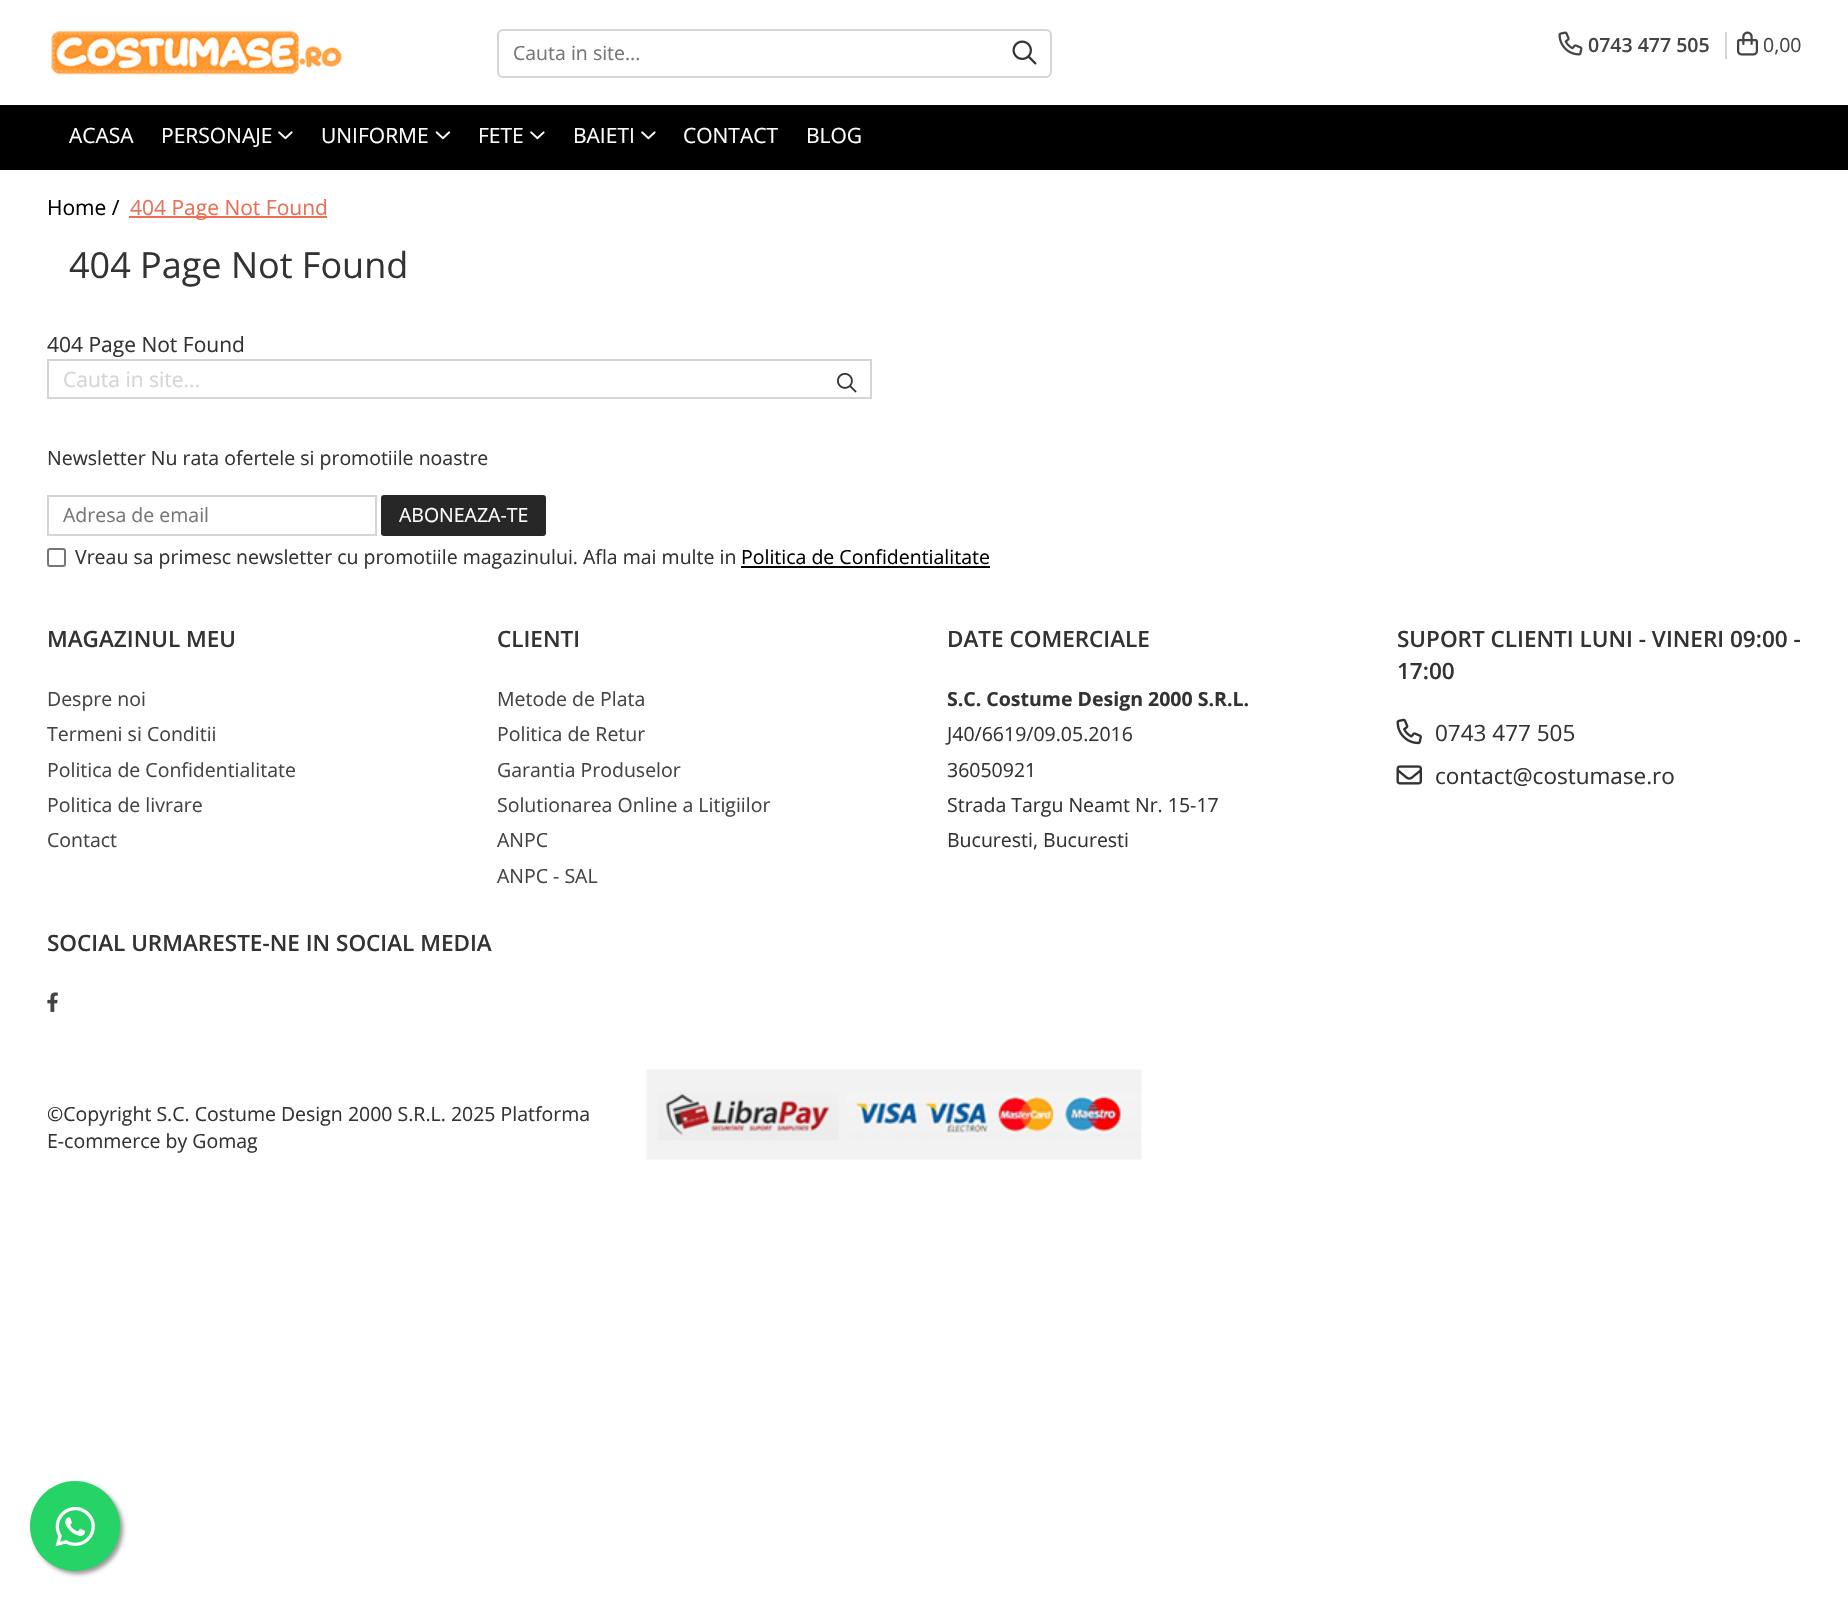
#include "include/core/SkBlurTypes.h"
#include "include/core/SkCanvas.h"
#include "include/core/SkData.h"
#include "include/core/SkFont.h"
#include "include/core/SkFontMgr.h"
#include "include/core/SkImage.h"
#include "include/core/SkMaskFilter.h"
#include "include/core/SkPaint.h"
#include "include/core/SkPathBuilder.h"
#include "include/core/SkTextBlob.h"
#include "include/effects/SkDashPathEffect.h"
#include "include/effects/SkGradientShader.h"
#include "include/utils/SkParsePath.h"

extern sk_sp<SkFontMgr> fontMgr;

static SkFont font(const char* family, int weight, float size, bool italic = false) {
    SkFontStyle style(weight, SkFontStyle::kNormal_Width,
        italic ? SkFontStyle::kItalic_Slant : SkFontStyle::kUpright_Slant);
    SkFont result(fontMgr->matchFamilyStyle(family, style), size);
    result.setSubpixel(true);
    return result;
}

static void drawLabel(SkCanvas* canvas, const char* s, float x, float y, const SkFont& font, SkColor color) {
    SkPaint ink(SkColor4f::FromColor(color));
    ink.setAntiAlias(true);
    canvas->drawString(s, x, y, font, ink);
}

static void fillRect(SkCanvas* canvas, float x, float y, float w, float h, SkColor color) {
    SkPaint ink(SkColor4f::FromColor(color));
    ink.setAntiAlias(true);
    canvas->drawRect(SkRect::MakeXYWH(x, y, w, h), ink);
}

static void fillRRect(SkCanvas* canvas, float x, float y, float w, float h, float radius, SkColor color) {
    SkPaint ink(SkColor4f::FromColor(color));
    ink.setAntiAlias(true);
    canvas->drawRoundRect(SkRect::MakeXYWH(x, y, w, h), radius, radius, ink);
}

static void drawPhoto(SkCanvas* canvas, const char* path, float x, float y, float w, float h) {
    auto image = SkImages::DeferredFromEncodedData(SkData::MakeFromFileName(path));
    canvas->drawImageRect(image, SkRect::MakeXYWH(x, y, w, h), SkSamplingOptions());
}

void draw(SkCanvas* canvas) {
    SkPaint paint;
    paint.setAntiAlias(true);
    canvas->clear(0xFFFFFFFF);
    drawPhoto(canvas, "assets/img1.png", 51, 30, 291, 45);
    paint.setStroke(true);
    paint.setStrokeWidth(2);
    paint.setColor(0xFFD5D5D5);
    canvas->drawRoundRect(SkRect::MakeXYWH(498, 30, 553, 47), 5, 5, paint);
    SkFont font1 = font("Open Sans", 400, 19.5f);
    drawLabel(canvas, "Cauta in site...", 513, 60, font1, 0xFF757575);
    drawPhoto(canvas, "assets/img2.png", 1012, 40, 25, 25);
    drawPhoto(canvas, "assets/img3.png", 1558, 31, 25, 25);
    SkFont font2 = font("Open Sans", 600, 19.5f);
    drawLabel(canvas, "0743 477 505", 1588, 52, font2, 0xFF444444);
    fillRect(canvas, 1725, 32, 2, 27, 0xFFD5D5D5);
    drawPhoto(canvas, "assets/img4.png", 1737, 31, 21, 25);
    drawLabel(canvas, "0,00", 1763, 52, font1, 0xFF444444);
    fillRect(canvas, 0, 105, 1848, 65, 0xFF000000);
    SkFont font3 = font("Open Sans", 400, 21);
    drawLabel(canvas, "ACASA", 69, 143, font3, 0xFFFFFFFF);
    drawLabel(canvas, "PERSONAJE", 161, 143, font3, 0xFFFFFFFF);
    drawPhoto(canvas, "assets/img5.png", 278, 131, 15, 9);
    drawLabel(canvas, "UNIFORME", 321, 143, font3, 0xFFFFFFFF);
    drawPhoto(canvas, "assets/img6.png", 435, 131, 16, 9);
    drawLabel(canvas, "FETE", 478, 143, font3, 0xFFFFFFFF);
    drawPhoto(canvas, "assets/img5.png", 530, 131, 15, 9);
    drawLabel(canvas, "BAIETI", 573, 143, font3, 0xFFFFFFFF);
    drawPhoto(canvas, "assets/img5.png", 641, 131, 15, 9);
    drawLabel(canvas, "CONTACT", 683, 143, font3, 0xFFFFFFFF);
    drawLabel(canvas, "BLOG", 806, 143, font3, 0xFFFFFFFF);
    drawLabel(canvas, "Home /", 47, 215, font3, 0xFF000000);
    fillRect(canvas, 129, 216, 198, 2, 0xFFE96F56);
    drawLabel(canvas, "404 Page Not Found", 130, 215, font3, 0xFFE96F56);
    SkFont font4 = font("Open Sans", 400, 36);
    drawLabel(canvas, "404 Page Not Found", 69, 278, font4, 0xFF333333);
    drawLabel(canvas, "404 Page Not Found", 47, 352, font3, 0xFF333333);
    canvas->drawRect(SkRect::MakeXYWH(48, 360, 823, 38), paint);
    drawLabel(canvas, "Cauta in site...", 63, 387, font3, 0xFFD5D5D5);
    drawPhoto(canvas, "assets/img7.png", 837, 372, 20, 21);
    drawLabel(canvas, "Newsletter Nu rata ofertele si promotiile noastre", 47, 465, font1, 0xFF333333);
    canvas->drawRect(SkRect::MakeXYWH(48, 496, 328, 39), paint);
    drawLabel(canvas, "Adresa de email", 63, 522, font1, 0xFF757575);
    fillRRect(canvas, 381, 495, 165, 41, 3, 0xFF272727);
    drawLabel(canvas, "ABONEAZA-TE", 399, 522, font1, 0xFFFFFFFF);
    paint.setColor(0xFF767676);
    canvas->drawRoundRect(SkRect::MakeXYWH(48, 549, 17, 17), 2, 2, paint);
    drawLabel(canvas, "Vreau sa primesc newsletter cu promotiile magazinului. Afla mai multe in", 75, 564, font1, 0xFF333333);
    drawLabel(canvas, "Politica de Confidentialitate", 741, 564, font1, 0xFF000000);
    fillRect(canvas, 741, 566, 249, 2, 0xFF000000);
    SkFont font5 = font("Open Sans", 600, 22.5f);
    drawLabel(canvas, "MAGAZINUL MEU", 47, 647, font5, 0xFF333333);
    drawLabel(canvas, "Despre noi", 47, 706, font1, 0xFF444444);
    drawLabel(canvas, "Termeni si Conditii", 47, 741, font1, 0xFF444444);
    drawLabel(canvas, "Politica de Confidentialitate", 47, 777, font1, 0xFF444444);
    drawLabel(canvas, "Politica de livrare", 47, 812, font1, 0xFF444444);
    drawLabel(canvas, "Contact", 47, 847, font1, 0xFF444444);
    drawLabel(canvas, "CLIENTI", 497, 647, font5, 0xFF333333);
    drawLabel(canvas, "Metode de Plata", 497, 706, font1, 0xFF444444);
    drawLabel(canvas, "Politica de Retur", 497, 741, font1, 0xFF444444);
    drawLabel(canvas, "Garantia Produselor", 497, 777, font1, 0xFF444444);
    drawLabel(canvas, "Solutionarea Online a Litigiilor", 497, 812, font1, 0xFF444444);
    drawLabel(canvas, "ANPC", 497, 847, font1, 0xFF444444);
    drawLabel(canvas, "ANPC - SAL", 497, 883, font1, 0xFF444444);
    drawLabel(canvas, "DATE COMERCIALE", 947, 647, font5, 0xFF333333);
    SkFont font6 = font("Open Sans", 700, 19.5f);
    drawLabel(canvas, "S.C. Costume Design 2000 S.R.L.", 947, 706, font6, 0xFF333333);
    drawLabel(canvas, "J40/6619/09.05.2016", 947, 741, font1, 0xFF333333);
    drawLabel(canvas, "36050921", 947, 777, font1, 0xFF333333);
    drawLabel(canvas, "Strada Targu Neamt Nr. 15-17", 947, 812, font1, 0xFF333333);
    drawLabel(canvas, "Bucuresti, Bucuresti", 947, 847, font1, 0xFF333333);
    drawLabel(canvas, "SUPORT CLIENTI LUNI - VINERI 09:00 -", 1397, 647, font5, 0xFF333333);
    drawLabel(canvas, "17:00", 1397, 679, font5, 0xFF333333);
    drawPhoto(canvas, "assets/img8.png", 1396, 718, 26, 27);
    SkFont font7 = font("Open Sans", 400, 22.5f);
    drawLabel(canvas, "0743 477 505", 1435, 741, font7, 0xFF333333);
    drawPhoto(canvas, "assets/img9.png", 1396, 765, 26, 20);
    drawLabel(canvas, "contact@costumase.ro", 1435, 784, font7, 0xFF333333);
    drawLabel(canvas, "SOCIAL URMARESTE-NE IN SOCIAL MEDIA", 47, 951, font5, 0xFF333333);
    drawPhoto(canvas, "assets/img10.png", 47, 992, 11, 20);
    drawLabel(canvas, "©Copyright S.C. Costume Design 2000 S.R.L. 2025 Platforma", 47, 1121, font1, 0xFF333333);
    drawLabel(canvas, "E-commerce by Gomag", 47, 1148, font1, 0xFF333333);
    drawPhoto(canvas, "assets/img11.png", 646, 1069, 496, 91);
    paint.setStroke(false);
    paint.setColor(0xFF999999);
    paint.setMaskFilter(SkMaskFilter::MakeBlur(kNormal_SkBlurStyle, 2));
    canvas->drawRoundRect(SkRect::MakeXYWH(33, 1484, 90, 90), 45, 45, paint);
    paint.setMaskFilter(nullptr);
    paint.setColor(0xFF25D366);
    canvas->drawCircle(75, 1526, 45, paint);
    drawPhoto(canvas, "assets/img12.png", 55, 1506, 40, 41);
}
